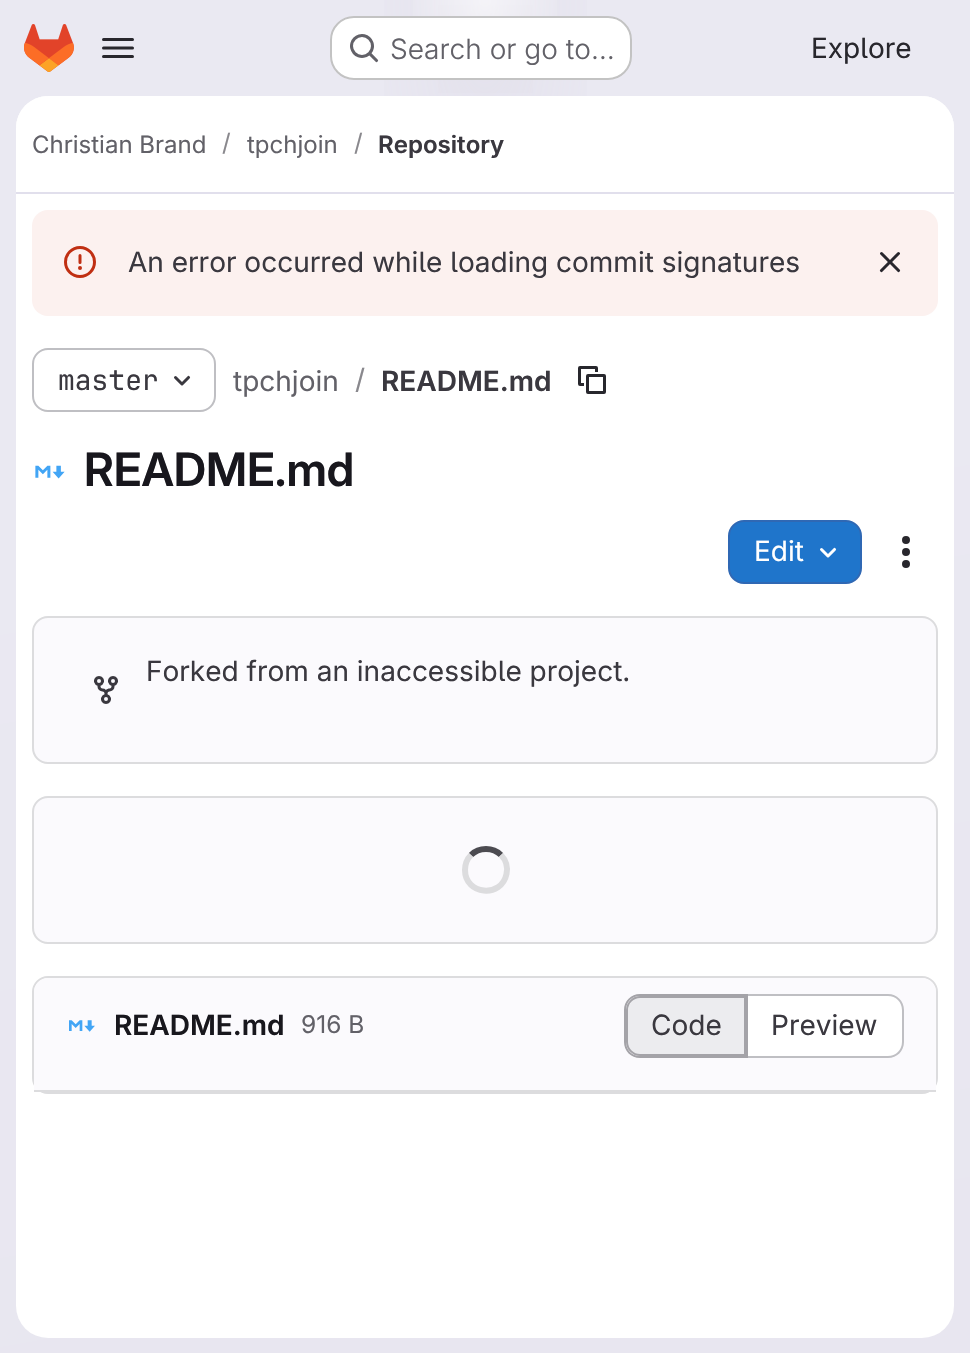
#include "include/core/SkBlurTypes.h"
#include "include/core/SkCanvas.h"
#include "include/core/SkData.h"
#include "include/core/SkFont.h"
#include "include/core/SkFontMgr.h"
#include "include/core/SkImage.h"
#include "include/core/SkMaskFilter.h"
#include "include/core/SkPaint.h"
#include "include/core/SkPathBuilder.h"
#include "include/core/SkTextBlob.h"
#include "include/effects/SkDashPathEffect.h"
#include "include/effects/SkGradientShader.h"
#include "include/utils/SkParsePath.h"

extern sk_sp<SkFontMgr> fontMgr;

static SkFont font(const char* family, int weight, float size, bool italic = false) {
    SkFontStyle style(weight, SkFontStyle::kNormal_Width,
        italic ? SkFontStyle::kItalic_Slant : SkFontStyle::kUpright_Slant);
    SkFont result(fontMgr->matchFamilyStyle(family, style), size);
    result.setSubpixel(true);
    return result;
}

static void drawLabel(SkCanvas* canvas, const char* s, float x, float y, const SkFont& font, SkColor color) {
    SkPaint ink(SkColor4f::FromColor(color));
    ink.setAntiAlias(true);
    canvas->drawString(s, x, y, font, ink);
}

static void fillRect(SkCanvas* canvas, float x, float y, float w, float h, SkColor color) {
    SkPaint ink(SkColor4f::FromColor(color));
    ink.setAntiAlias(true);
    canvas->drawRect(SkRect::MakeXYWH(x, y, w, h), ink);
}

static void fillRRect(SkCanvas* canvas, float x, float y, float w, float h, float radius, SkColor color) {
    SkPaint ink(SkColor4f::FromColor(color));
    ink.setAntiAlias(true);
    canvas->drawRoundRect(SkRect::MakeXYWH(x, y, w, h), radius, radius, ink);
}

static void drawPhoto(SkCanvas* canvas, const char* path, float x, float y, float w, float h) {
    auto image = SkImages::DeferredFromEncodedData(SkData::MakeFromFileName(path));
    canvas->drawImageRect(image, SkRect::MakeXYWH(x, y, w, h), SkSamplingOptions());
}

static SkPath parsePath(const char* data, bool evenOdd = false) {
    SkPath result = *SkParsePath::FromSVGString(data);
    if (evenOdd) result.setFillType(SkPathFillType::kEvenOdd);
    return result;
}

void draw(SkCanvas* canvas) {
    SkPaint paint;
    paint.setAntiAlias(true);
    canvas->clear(0xFFFFFFFF);
    {
        const SkColor colors[] = {0xFFE8E6F0, 0xFFEAE9F2};
        const float stops[] = {0, 0.7f};
        const SkPoint ends[] = {{615, 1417}, {355, -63}};
        paint.setShader(SkGradientShader::MakeLinear(ends, colors, stops, 2, SkTileMode::kClamp));
        paint.setAlpha(255);
    }
    canvas->drawRect(SkRect::MakeXYWH(0, 0, 970, 1353), paint);
    {
        const SkColor colors[] = {0xFFE4E2ED, 0x00E4E2ED};
        const float stops[] = {0, 0.29f};
        SkMatrix m = SkMatrix::Translate(485, 0).preScale(485, 1354);
        paint.setShader(SkGradientShader::MakeRadial({0, 0}, 1, colors, stops, 2, SkTileMode::kClamp, 0, &m));
        paint.setAlpha(255);
    }
    canvas->drawRect(SkRect::MakeXYWH(384, 0, 203, 96), paint);
    {
        const SkColor colors[] = {0xFFE4E2EC, 0x00E4E2EC};
        const float stops[] = {0, 0.21f};
        SkMatrix m = SkMatrix::Translate(485, 0).preScale(485, 1354);
        paint.setShader(SkGradientShader::MakeRadial({0, 0}, 1, colors, stops, 2, SkTileMode::kClamp, 0, &m));
        paint.setAlpha(255);
    }
    canvas->drawRect(SkRect::MakeXYWH(438, 5, 95, 88), paint);
    {
        const SkColor colors[] = {0x99FFFFFF, 0x00FFFFFF};
        const float stops[] = {0, 0.06f};
        paint.setShader(SkGradientShader::MakeRadial({485, 0}, 1438, colors, stops, 2, SkTileMode::kClamp));
        paint.setAlpha(255);
    }
    canvas->drawRect(SkRect::MakeXYWH(413, 0, 144, 73), paint);
    drawPhoto(canvas, "assets/img1.png", 24, 24, 50, 48);
    drawPhoto(canvas, "assets/img2.png", 102, 38, 32, 20);
    fillRRect(canvas, 330, 16, 302, 64, 24, 0xFFFFFFFF);
    paint.setStroke(true);
    paint.setStrokeWidth(2);
    paint.setShader(nullptr);
    paint.setColor(0x3D050506);
    canvas->drawRoundRect(SkRect::MakeXYWH(331, 17, 300, 62), 23, 23, paint);
    drawPhoto(canvas, "assets/img3.png", 350, 34, 29, 29);
    SkFont font1 = font("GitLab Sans", 300, 28);
    drawLabel(canvas, "Search or go to…", 390, 59, font1, 0xFF626168);
    SkFont font2 = font("GitLab Sans", 400, 28);
    drawLabel(canvas, "Explore", 811, 58, font2, 0xFF28272D);
    fillRRect(canvas, 16, 96, 938, 1242, 32, 0xFFFFFFFF);
    paint.setStroke(false);
    paint.setColor(0xFFFFFFFF);
    canvas->drawPath(parsePath("M48 96H922C939.5 96 954 110.5 954 128V194H16V128C16 110.5 30.5 96 48 96Z"), paint);
    fillRect(canvas, 16, 192, 938, 2, 0xFFE1DFEC);
    SkFont font3 = font("GitLab Sans", 400, 24);
    drawLabel(canvas, "Christian Brand", 32, 153, font3, 0xFF626168);
    drawLabel(canvas, "/", 222, 151, font3, 0xFF89888D);
    drawLabel(canvas, "tpchjoin", 247, 153, font3, 0xFF626168);
    drawLabel(canvas, "/", 354, 151, font3, 0xFF89888D);
    SkFont font4 = font("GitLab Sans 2", 600, 24);
    drawLabel(canvas, "Repository", 378, 153, font4, 0xFF3A383F);
    fillRRect(canvas, 32, 210, 906, 106, 16, 0xFFFCF1EF);
    drawPhoto(canvas, "assets/img4.png", 64, 246, 32, 32);
    drawLabel(canvas, "An error occurred while loading commit signatures", 128, 272, font2, 0xFF3A383F);
    drawPhoto(canvas, "assets/img5.png", 879, 252, 22, 21);
    paint.setStroke(true);
    paint.setColor(0xFFBFBFC3);
    canvas->drawRoundRect(SkRect::MakeXYWH(33, 349, 182, 62), 15, 15, paint);
    SkFont font5 = font("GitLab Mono", 400, 28);
    drawLabel(canvas, "master", 58, 390, font5, 0xFF3A383F);
    drawPhoto(canvas, "assets/img6.png", 174, 375, 17, 11);
    drawLabel(canvas, "tpchjoin", 233, 391, font2, 0xFF626168);
    drawLabel(canvas, "/", 355, 389, font2, 0xFF89888D);
    SkFont font6 = font("GitLab Sans 2", 600, 28);
    drawLabel(canvas, "README.md", 381, 391, font6, 0xFF3A383F);
    drawPhoto(canvas, "assets/img7.png", 578, 366, 28, 28);
    drawPhoto(canvas, "assets/img8.png", 35, 465, 30, 14);
    SkFont font7 = font("GitLab Sans", 600, 46);
    drawLabel(canvas, "README.md", 84, 486, font7, 0xFF18171D);
    paint.setStroke(false);
    paint.setColor(0xFF1F75CB);
    canvas->drawRoundRect(SkRect::MakeXYWH(729, 521, 132, 62), 15, 15, paint);
    paint.setStroke(true);
    paint.setColor(0xFF2F68B4);
    canvas->drawRoundRect(SkRect::MakeXYWH(729, 521, 132, 62), 15, 15, paint);
    drawLabel(canvas, "Edit", 754, 561, font2, 0xFFFFFFFF);
    drawPhoto(canvas, "assets/img9.png", 820, 547, 17, 11);
    drawPhoto(canvas, "assets/img10.png", 902, 536, 8, 32);
    paint.setStroke(false);
    paint.setColor(0xFFFBFAFD);
    canvas->drawRoundRect(SkRect::MakeXYWH(33, 617, 904, 146), 15, 15, paint);
    paint.setStroke(true);
    paint.setColor(0xFFDCDCDE);
    canvas->drawRoundRect(SkRect::MakeXYWH(33, 617, 904, 146), 15, 15, paint);
    drawLabel(canvas, "Forked from an inaccessible project.", 146, 681, font2, 0xFF3A383F);
    drawPhoto(canvas, "assets/img11.png", 94, 676, 24, 28);
    paint.setStroke(false);
    paint.setColor(0xFFFBFAFD);
    canvas->drawRoundRect(SkRect::MakeXYWH(33, 797, 904, 146), 15, 15, paint);
    paint.setStroke(true);
    paint.setColor(0xFFDCDCDE);
    canvas->drawRoundRect(SkRect::MakeXYWH(33, 797, 904, 146), 15, 15, paint);
    paint.setStrokeWidth(6);
    paint.setColor(0xFF4C4B51);
    canvas->drawPath(parsePath("M471 855C479 847 493 847 501 855"), paint);
    paint.setColor(0xFFDCDCDE);
    canvas->drawPath(parsePath("M501 855C506 860 508 867.5 506.5 874C501.5 898.5 465 895 465 870C465 864.5 467 859 471 855"), paint);
    paint.setStrokeWidth(2);
    canvas->drawRoundRect(SkRect::MakeXYWH(33, 977, 904, 116), 15, 15, paint);
    paint.setStroke(false);
    paint.setColor(0xFFFBFAFD);
    canvas->drawPath(parsePath("M48 978H922C929.5 978 936 984.5 936 992V1092H34V992C34 984.5 40.5 978 48 978Z"), paint);
    fillRect(canvas, 34, 1090, 902, 2, 0xFFDCDCDE);
    drawPhoto(canvas, "assets/img12.png", 69, 1020, 26, 12);
    drawLabel(canvas, "README.md", 114, 1035, font6, 0xFF18171D);
    SkFont font8 = font("GitLab Sans", 400, 24.5f);
    drawLabel(canvas, "916 B", 301, 1033, font8, 0xFF626168);
    paint.setColor(0xFFECECEF);
    canvas->drawPath(parsePath("M640 997H745V1055H640C633 1055 627 1049 627 1042V1010C627 1003 633 997 640 997Z"), paint);
    paint.setStroke(true);
    paint.setColor(0xFFA4A3A8);
    canvas->drawPath(parsePath("M640 997H745V1055H640C633 1055 627 1049 627 1042V1010C627 1003 633 997 640 997Z"), paint);
    paint.setStroke(false);
    canvas->drawPath(parsePath("M640 994H746V1058H640C631 1058 624 1051 624 1042V1010C624 1001 631 994 640 994ZM640 996H746V1056H640C632 1056 626 1050 626 1042V1010C626 1002 632 996 640 996Z", true), paint);
    drawLabel(canvas, "Code", 651, 1035, font2, 0xFF3A383F);
    paint.setColor(0xFFFFFFFF);
    canvas->drawPath(parsePath("M748 996H888C895.5 996 902 1002.5 902 1010V1042C902 1049.5 895.5 1056 888 1056H748Z"), paint);
    paint.setColor(0xFFBFBFC3);
    canvas->drawPath(parsePath("M748 994H888C897 994 904 1001 904 1010V1042C904 1051 897 1058 888 1058H748ZM748 996H888C896 996 902 1002 902 1010V1042C902 1050 896 1056 888 1056H748Z", true), paint);
    fillRect(canvas, 746, 994, 2, 64, 0xFFA4A3A8);
    drawLabel(canvas, "Preview", 771, 1035, font2, 0xFF3A383F);
}
